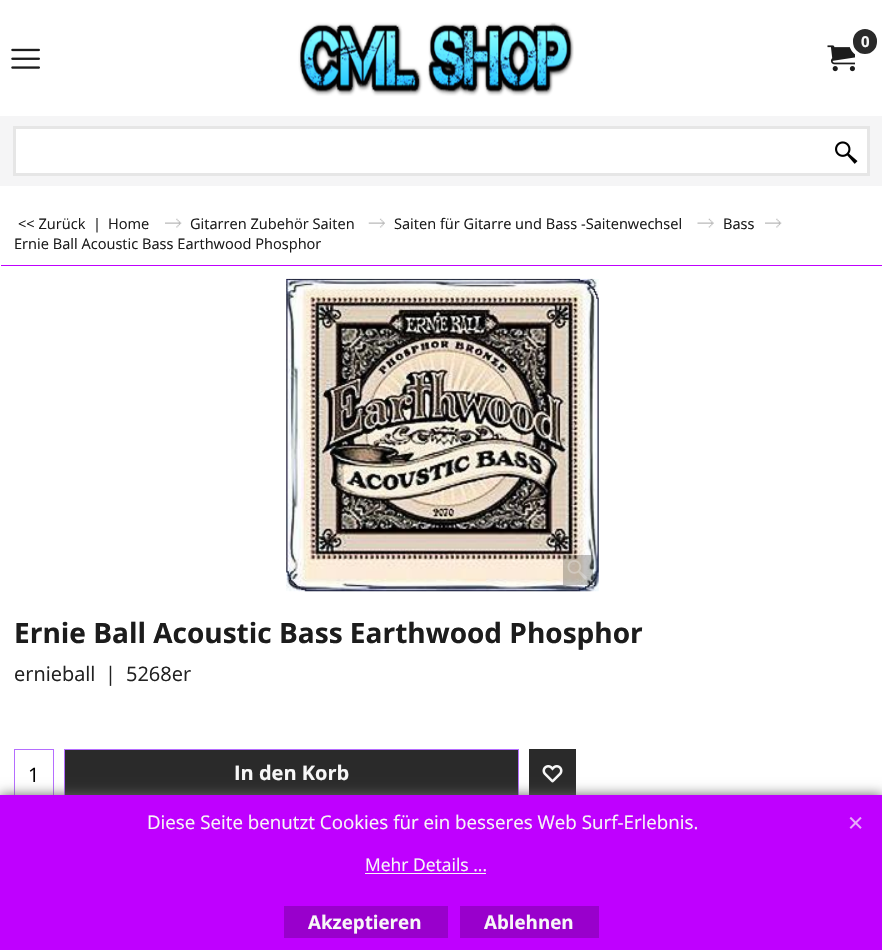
#include "include/core/SkBlurTypes.h"
#include "include/core/SkCanvas.h"
#include "include/core/SkData.h"
#include "include/core/SkFont.h"
#include "include/core/SkFontMgr.h"
#include "include/core/SkImage.h"
#include "include/core/SkMaskFilter.h"
#include "include/core/SkPaint.h"
#include "include/core/SkPathBuilder.h"
#include "include/core/SkTextBlob.h"
#include "include/effects/SkDashPathEffect.h"
#include "include/effects/SkGradientShader.h"
#include "include/utils/SkParsePath.h"

extern sk_sp<SkFontMgr> fontMgr;

static SkFont font(const char* family, int weight, float size, bool italic = false) {
    SkFontStyle style(weight, SkFontStyle::kNormal_Width,
        italic ? SkFontStyle::kItalic_Slant : SkFontStyle::kUpright_Slant);
    SkFont result(fontMgr->matchFamilyStyle(family, style), size);
    result.setSubpixel(true);
    return result;
}

static void drawLabel(SkCanvas* canvas, const char* s, float x, float y, const SkFont& font, SkColor color) {
    SkPaint ink(SkColor4f::FromColor(color));
    ink.setAntiAlias(true);
    canvas->drawString(s, x, y, font, ink);
}

static void fillRect(SkCanvas* canvas, float x, float y, float w, float h, SkColor color) {
    SkPaint ink(SkColor4f::FromColor(color));
    ink.setAntiAlias(true);
    canvas->drawRect(SkRect::MakeXYWH(x, y, w, h), ink);
}

static void drawPhoto(SkCanvas* canvas, const char* path, float x, float y, float w, float h) {
    auto image = SkImages::DeferredFromEncodedData(SkData::MakeFromFileName(path));
    canvas->drawImageRect(image, SkRect::MakeXYWH(x, y, w, h), SkSamplingOptions());
}

void draw(SkCanvas* canvas) {
    SkPaint paint;
    paint.setAntiAlias(true);
    canvas->clear(0xFFFFFFFF);
    drawPhoto(canvas, "assets/img1.png", 298, 22, 276, 74);
    drawPhoto(canvas, "assets/img2.png", 827, 45, 28, 27);
    paint.setColor(0xFF2A2A2A);
    canvas->drawRoundRect(SkRect::MakeXYWH(851, 27, 28, 29), 14, 14, paint);
    paint.setStroke(true);
    paint.setStrokeWidth(4);
    paint.setColor(0xFFFFFFFF);
    canvas->drawRoundRect(SkRect::MakeXYWH(851, 27, 28, 29), 14, 14, paint);
    SkFont font1 = font("Open Sans", 700, 15);
    drawLabel(canvas, "0", 861, 47, font1, 0xFFF7F7F7);
    drawPhoto(canvas, "assets/img3.png", 11, 48, 29, 21);
    fillRect(canvas, 0, 116, 882, 70, 0xFFF5F5F6);
    paint.setStroke(false);
    canvas->drawRect(SkRect::MakeXYWH(14.5f, 127.5f, 854, 47), paint);
    paint.setStroke(true);
    paint.setStrokeWidth(3);
    paint.setColor(0xFFE6E6E6);
    canvas->drawRect(SkRect::MakeXYWH(14.5f, 127.5f, 854, 47), paint);
    drawPhoto(canvas, "assets/img4.png", 835, 141, 23, 23);
    fillRect(canvas, 1, 265, 881, 1, 0xFFBF00FF);
    SkFont font2 = font("Open Sans", 400, 14.6f);
    drawLabel(canvas, "<< Zurück", 18, 229, font2, 0xFF1C1C1C);
    drawLabel(canvas, "|", 93, 229, font2, 0xFF1C1C1C);
    drawLabel(canvas, "Home", 108, 229, font2, 0xFF1C1C1C);
    drawPhoto(canvas, "assets/img5.png", 165, 218, 17, 10);
    drawLabel(canvas, "Gitarren Zubehör Saiten", 190, 229, font2, 0xFF1C1C1C);
    drawPhoto(canvas, "assets/img6.png", 368, 218, 17, 10);
    drawLabel(canvas, "Saiten für Gitarre und Bass -Saitenwechsel", 394, 229, font2, 0xFF1C1C1C);
    drawPhoto(canvas, "assets/img7.png", 697, 218, 17, 10);
    drawLabel(canvas, "Bass", 723, 229, font2, 0xFF1C1C1C);
    drawPhoto(canvas, "assets/img5.png", 765, 218, 17, 10);
    drawLabel(canvas, "Ernie Ball Acoustic Bass Earthwood Phosphor", 14, 249, font2, 0xFF1C1C1C);
    drawPhoto(canvas, "assets/img8.png", 286, 278, 313, 314);
    fillRect(canvas, 563, 555, 30, 30, 0x4D383630);
    drawPhoto(canvas, "assets/img9.png", 567, 560, 21, 20);
    SkFont font3 = font("Open Sans", 700, 28);
    drawLabel(canvas, "Ernie Ball Acoustic Bass Earthwood Phosphor", 14, 643, font3, 0xFF1C1C1C);
    SkFont font4 = font("Open Sans", 400, 20);
    drawLabel(canvas, "ernieball", 14, 681, font4, 0xFF222222);
    drawLabel(canvas, "|", 105, 681, font4, 0xFF222222);
    drawLabel(canvas, "5268er", 126, 681, font4, 0xFF222222);
    paint.setStrokeWidth(1);
    paint.setColor(0xFFB56DFF);
    canvas->drawRect(SkRect::MakeXYWH(14.5f, 749.5f, 39, 49), paint);
    drawLabel(canvas, "1", 28, 782, font4, 0xFF000000);
    fillRect(canvas, 65, 750, 453, 45, 0xFF2A2A2A);
    canvas->drawRect(SkRect::MakeXYWH(64.5f, 749.5f, 454, 49), paint);
    SkFont font5 = font("Open Sans", 700, 20);
    drawLabel(canvas, "In den Korb", 234, 780, font5, 0xFFF7F7F7);
    fillRect(canvas, 529, 749, 47, 46, 0xFF2A2A2A);
    drawPhoto(canvas, "assets/img10.png", 542, 765, 21, 18);
    paint.setStroke(false);
    paint.setColor(0xFF666666);
    paint.setMaskFilter(SkMaskFilter::MakeBlur(kNormal_SkBlurStyle, 6));
    canvas->drawRect(SkRect::MakeXYWH(0, 795, 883, 155), paint);
    paint.setMaskFilter(nullptr);
    fillRect(canvas, 0, 795, 882, 155, 0xFFBF00FF);
    SkFont font6 = font("Open Sans", 400, 18.75f);
    drawLabel(canvas, "Diese Seite benutzt Cookies für ein besseres Web Surf-Erlebnis.", 147, 829, font6, 0xFFF7F7F7);
    SkFont font7 = font("Open Sans", 400, 17.5f);
    drawLabel(canvas, "Mehr Details ...", 365, 871, font7, 0xFFF7F7F7);
    fillRect(canvas, 365, 873, 121, 1, 0xFFF7F7F7);
    drawPhoto(canvas, "assets/img11.png", 849, 817, 13, 12);
    fillRect(canvas, 284, 906, 164, 32, 0xFF9900CC);
    SkFont font8 = font("Open Sans", 700, 18.75f);
    drawLabel(canvas, "Akzeptieren", 308, 929, font8, 0xFFF7F7F7);
    fillRect(canvas, 460, 906, 139, 32, 0xFF9900CC);
    drawLabel(canvas, "Ablehnen", 484, 929, font8, 0xFFF7F7F7);
}
